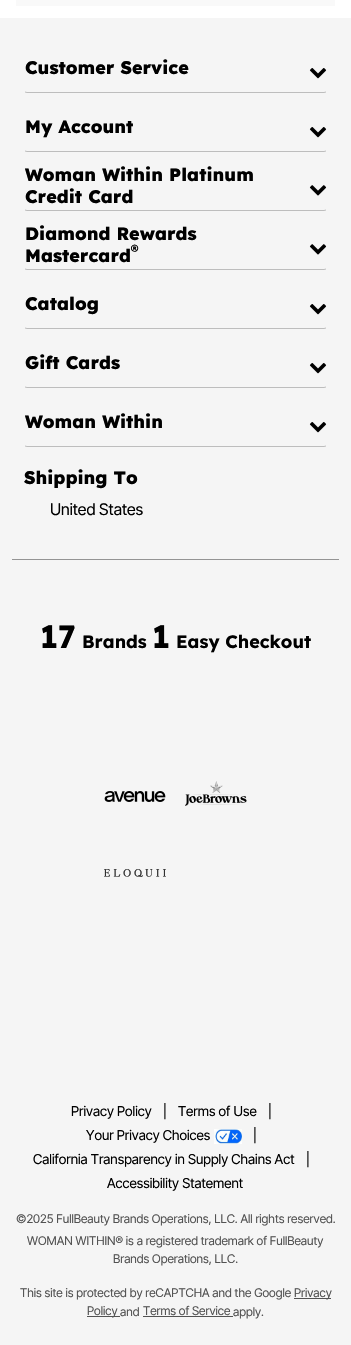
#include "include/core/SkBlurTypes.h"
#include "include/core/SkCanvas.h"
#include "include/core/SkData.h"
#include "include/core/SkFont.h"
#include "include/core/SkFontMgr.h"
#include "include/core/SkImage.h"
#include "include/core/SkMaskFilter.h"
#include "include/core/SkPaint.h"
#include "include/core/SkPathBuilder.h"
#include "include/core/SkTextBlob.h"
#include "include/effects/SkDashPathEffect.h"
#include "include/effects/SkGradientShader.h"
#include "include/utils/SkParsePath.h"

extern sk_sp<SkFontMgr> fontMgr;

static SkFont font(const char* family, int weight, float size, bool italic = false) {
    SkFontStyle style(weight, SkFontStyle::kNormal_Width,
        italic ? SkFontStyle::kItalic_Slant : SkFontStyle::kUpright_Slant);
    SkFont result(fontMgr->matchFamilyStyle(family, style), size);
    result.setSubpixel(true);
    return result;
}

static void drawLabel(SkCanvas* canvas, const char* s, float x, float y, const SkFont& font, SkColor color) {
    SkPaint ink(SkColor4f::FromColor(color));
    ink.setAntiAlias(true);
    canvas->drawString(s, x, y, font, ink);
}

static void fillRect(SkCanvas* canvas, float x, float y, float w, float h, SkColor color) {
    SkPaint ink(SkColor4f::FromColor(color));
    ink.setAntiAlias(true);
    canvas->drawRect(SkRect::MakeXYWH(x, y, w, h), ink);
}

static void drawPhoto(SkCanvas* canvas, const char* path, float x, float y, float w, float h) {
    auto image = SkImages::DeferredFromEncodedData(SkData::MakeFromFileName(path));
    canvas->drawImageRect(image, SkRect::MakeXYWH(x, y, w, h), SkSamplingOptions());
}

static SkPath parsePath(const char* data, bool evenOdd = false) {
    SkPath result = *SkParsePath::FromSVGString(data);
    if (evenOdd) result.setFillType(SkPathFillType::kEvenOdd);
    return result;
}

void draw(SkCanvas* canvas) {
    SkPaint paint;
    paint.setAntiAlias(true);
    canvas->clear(0xFFFFFFFF);
    fillRect(canvas, 16, 0, 319, 6, 0xFFF9F9F9);
    fillRect(canvas, 0, 18, 351, 1327, 0xFFF5F5F5);
    paint.setStroke(true);
    paint.setStrokeWidth(1);
    paint.setColor(0xFFBDBDBD);
    canvas->drawPath(parsePath("M326 92L324 92.5H27L25 92"), paint);
    SkFont font1 = font("Lexend", 800, 18);
    drawLabel(canvas, "Customer Service", 25, 74, font1, 0xFF000000);
    drawPhoto(canvas, "assets/img1.png", 309, 68, 18, 11);
    canvas->drawPath(parsePath("M326 151L324 151.5H27L25 151"), paint);
    drawLabel(canvas, "My Account", 25, 133, font1, 0xFF000000);
    drawPhoto(canvas, "assets/img1.png", 309, 127, 18, 11);
    canvas->drawPath(parsePath("M326 210L324 210.5H27L25 210"), paint);
    drawLabel(canvas, "Woman Within Platinum", 25, 181, font1, 0xFF000000);
    drawLabel(canvas, "Credit Card", 25, 203, font1, 0xFF000000);
    drawPhoto(canvas, "assets/img2.png", 309, 185, 18, 11);
    canvas->drawPath(parsePath("M326 269L324 269.5H27L25 269"), paint);
    drawLabel(canvas, "Diamond Rewards", 25, 240, font1, 0xFF000000);
    drawLabel(canvas, "Mastercard", 25, 262, font1, 0xFF000000);
    SkFont font2 = font("Lexend", 800, 14);
    drawLabel(canvas, "®", 131, 255, font2, 0xFF000000);
    drawPhoto(canvas, "assets/img2.png", 309, 244, 18, 11);
    canvas->drawPath(parsePath("M326 328L324 328.5H27L25 328"), paint);
    drawLabel(canvas, "Catalog", 25, 310, font1, 0xFF000000);
    drawPhoto(canvas, "assets/img1.png", 309, 304, 18, 11);
    canvas->drawPath(parsePath("M326 387L324 387.5H27L25 387"), paint);
    drawLabel(canvas, "Gift Cards", 25, 369, font1, 0xFF000000);
    drawPhoto(canvas, "assets/img1.png", 309, 363, 18, 11);
    canvas->drawPath(parsePath("M326 446L324 446.5H27L25 446"), paint);
    drawLabel(canvas, "Woman Within", 25, 428, font1, 0xFF000000);
    drawPhoto(canvas, "assets/img1.png", 309, 422, 18, 11);
    drawLabel(canvas, "Shipping To", 24, 484, font1, 0xFF000000);
    SkFont font3 = font("Inter Tight", 400, 16);
    drawLabel(canvas, "United States", 50, 515, font3, 0xFF000000);
    fillRect(canvas, 12, 559, 327, 1, 0xFF949494);
    SkFont font4 = font("Lexend", 700, 32);
    drawLabel(canvas, "17", 40, 648, font4, 0xFF000000);
    SkFont font5 = font("Lexend", 700, 18);
    drawLabel(canvas, "Brands", 82, 648, font5, 0xFF000000);
    drawLabel(canvas, "1", 152, 648, font4, 0xFF000000);
    drawLabel(canvas, "Easy Checkout", 176, 648, font5, 0xFF000000);
    drawPhoto(canvas, "assets/img3.png", 104, 791, 62, 11);
    drawPhoto(canvas, "assets/img4.png", 185, 781, 62, 25);
    drawPhoto(canvas, "assets/img5.png", 104, 869, 62, 8);
    SkFont font6 = font("Inter Tight", 400, 13.6f);
    drawLabel(canvas, "Privacy Policy", 71, 1116, font6, 0xFF000000);
    drawLabel(canvas, "|", 163, 1116, font6, 0xFF000000);
    drawLabel(canvas, "Terms of Use", 178, 1116, font6, 0xFF000000);
    drawLabel(canvas, "|", 268, 1116, font6, 0xFF000000);
    drawLabel(canvas, "Your Privacy Choices", 86, 1140, font6, 0xFF000000);
    drawPhoto(canvas, "assets/img6.png", 214, 1129, 28, 15);
    drawLabel(canvas, "|", 253, 1140, font6, 0xFF000000);
    drawLabel(canvas, "California Transparency in Supply Chains Act", 33, 1164, font6, 0xFF000000);
    drawLabel(canvas, "|", 306, 1164, font6, 0xFF000000);
    drawLabel(canvas, "Accessibility Statement", 107, 1188, font6, 0xFF000000);
    SkFont font7 = font("Inter Tight", 400, 12);
    drawLabel(canvas, "©2025 FullBeauty Brands Operations, LLC. All rights reserved.", 16, 1223, font7, 0xFF525252);
    drawLabel(canvas, "WOMAN WITHIN® is a registered trademark of FullBeauty", 27, 1245, font7, 0xFF525252);
    drawLabel(canvas, "Brands Operations, LLC.", 113, 1263, font7, 0xFF525252);
    drawLabel(canvas, "This site is protected by reCAPTCHA and the Google", 20, 1297, font7, 0xFF525252);
    fillRect(canvas, 294, 1298, 37, 1, 0xFF525252);
    drawLabel(canvas, "Privacy", 294, 1297, font7, 0xFF525252);
    fillRect(canvas, 87, 1316, 33, 1, 0xFF525252);
    drawLabel(canvas, "Policy", 87, 1315, font7, 0xFF525252);
    drawLabel(canvas, "and", 120, 1316, font7, 0xFF525252);
    drawLabel(canvas, "Terms of Service", 143, 1315, font7, 0xFF525252);
    fillRect(canvas, 143, 1316, 90, 1, 0xFF525252);
    drawLabel(canvas, "apply.", 233, 1316, font7, 0xFF525252);
}
